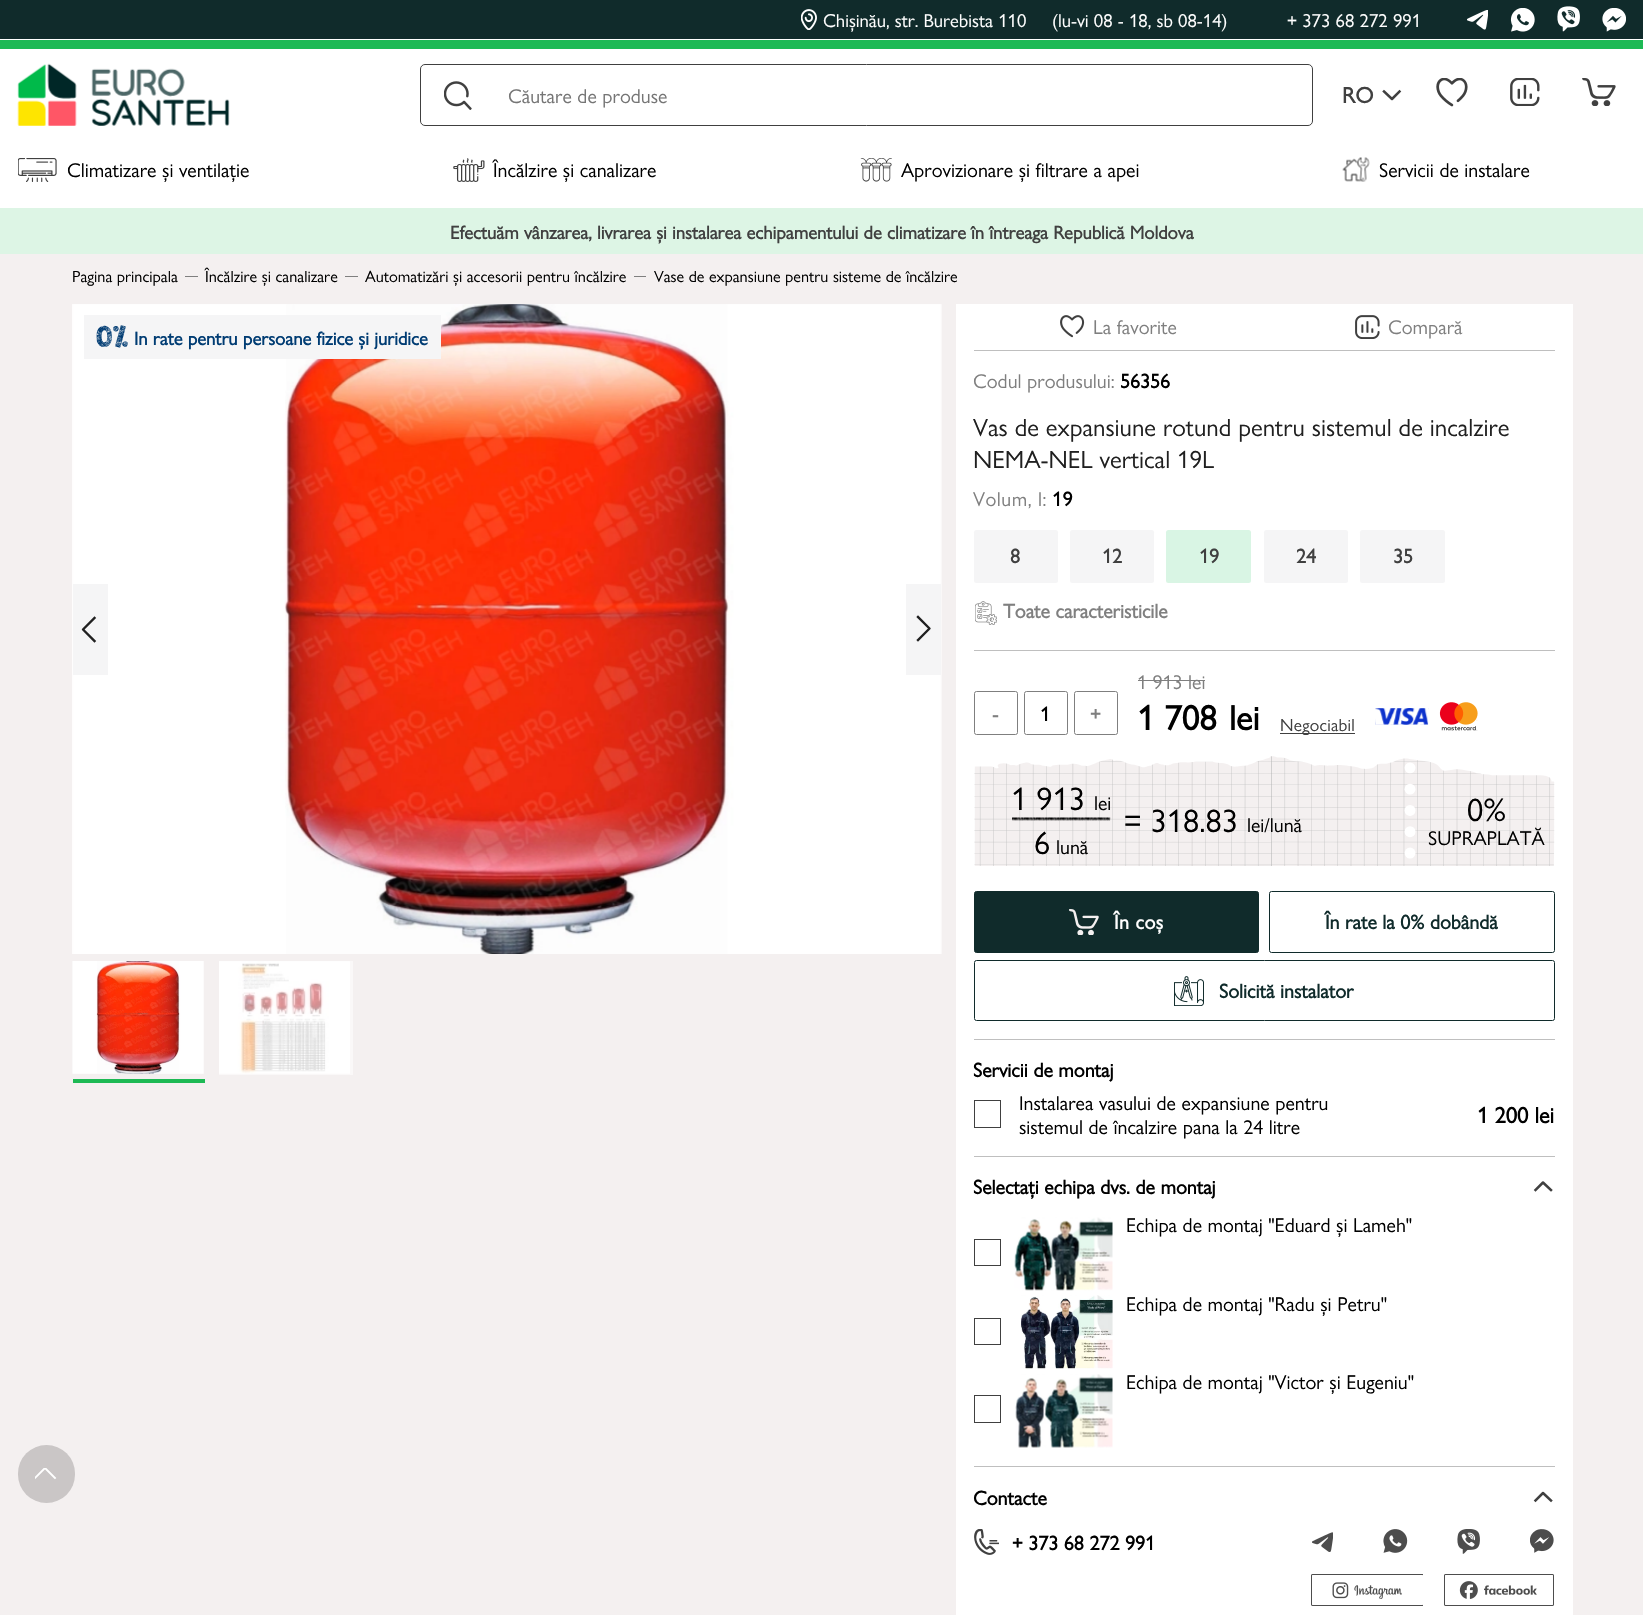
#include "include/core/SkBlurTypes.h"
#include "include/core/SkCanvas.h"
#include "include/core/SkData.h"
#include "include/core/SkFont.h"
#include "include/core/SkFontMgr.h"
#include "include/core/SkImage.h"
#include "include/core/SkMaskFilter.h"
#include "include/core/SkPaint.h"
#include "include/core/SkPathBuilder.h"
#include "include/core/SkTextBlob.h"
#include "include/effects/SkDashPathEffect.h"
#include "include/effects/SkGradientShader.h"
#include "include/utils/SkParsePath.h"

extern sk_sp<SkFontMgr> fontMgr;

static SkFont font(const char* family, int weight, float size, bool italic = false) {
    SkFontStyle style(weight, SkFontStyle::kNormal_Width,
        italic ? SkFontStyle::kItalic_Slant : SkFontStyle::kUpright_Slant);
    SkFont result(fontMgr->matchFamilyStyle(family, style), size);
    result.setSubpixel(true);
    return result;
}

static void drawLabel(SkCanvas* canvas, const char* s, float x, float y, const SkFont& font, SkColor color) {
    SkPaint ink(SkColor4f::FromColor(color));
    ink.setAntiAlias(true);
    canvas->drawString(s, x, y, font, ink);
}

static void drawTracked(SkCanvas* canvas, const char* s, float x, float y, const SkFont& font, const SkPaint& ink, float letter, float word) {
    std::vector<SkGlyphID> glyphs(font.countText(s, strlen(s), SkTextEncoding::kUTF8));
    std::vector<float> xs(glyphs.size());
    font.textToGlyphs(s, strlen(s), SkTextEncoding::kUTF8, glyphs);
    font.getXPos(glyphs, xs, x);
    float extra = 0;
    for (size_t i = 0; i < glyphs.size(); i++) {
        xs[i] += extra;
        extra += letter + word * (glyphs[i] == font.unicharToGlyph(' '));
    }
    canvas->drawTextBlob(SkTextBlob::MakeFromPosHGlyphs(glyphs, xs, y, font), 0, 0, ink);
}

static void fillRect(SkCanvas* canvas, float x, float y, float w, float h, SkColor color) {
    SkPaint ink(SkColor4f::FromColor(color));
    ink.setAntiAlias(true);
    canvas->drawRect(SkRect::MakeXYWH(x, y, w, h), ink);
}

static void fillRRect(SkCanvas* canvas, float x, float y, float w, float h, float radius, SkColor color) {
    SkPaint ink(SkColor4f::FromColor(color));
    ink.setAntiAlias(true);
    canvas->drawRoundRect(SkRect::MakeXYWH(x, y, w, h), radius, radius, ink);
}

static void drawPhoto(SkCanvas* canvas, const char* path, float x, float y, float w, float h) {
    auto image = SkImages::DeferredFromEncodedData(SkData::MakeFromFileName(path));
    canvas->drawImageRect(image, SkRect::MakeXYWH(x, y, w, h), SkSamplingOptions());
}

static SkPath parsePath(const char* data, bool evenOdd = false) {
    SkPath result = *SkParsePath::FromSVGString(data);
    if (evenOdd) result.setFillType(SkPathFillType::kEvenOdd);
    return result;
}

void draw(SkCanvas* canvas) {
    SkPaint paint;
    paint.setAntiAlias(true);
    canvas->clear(0xFFFFFFFF);
    fillRect(canvas, 0, 0, 1643, 39, 0xFF102B2B);
    drawPhoto(canvas, "assets/img1.png", 801, 9, 16, 21);
    SkFont font1 = font("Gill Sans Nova", 400, 18.75f);
    drawLabel(canvas, "Chișinău, str. Burebista 110", 823, 27, font1, 0xFFFFFFFF);
    drawLabel(canvas, "(lu-vi 08 - 18, sb 08-14)", 1052, 27, font1, 0xFFFFFFFF);
    drawLabel(canvas, "+ 373 68 272 991", 1287, 27, font1, 0xFFFFFFFF);
    drawPhoto(canvas, "assets/img2.png", 1467, 10, 21, 20);
    drawPhoto(canvas, "assets/img3.png", 1510, 8, 25, 24);
    drawPhoto(canvas, "assets/img4.png", 1557, 6, 23, 26);
    drawPhoto(canvas, "assets/img5.png", 1602, 8, 24, 24);
    fillRect(canvas, 0, 40, 1643, 9, 0xFF1DB954);
    drawPhoto(canvas, "assets/img6.png", 17, 63, 213, 63);
    paint.setStroke(true);
    paint.setStrokeWidth(1);
    paint.setColor(0xFF404040);
    canvas->drawRoundRect(SkRect::MakeXYWH(420.5f, 64.5f, 892, 61), 4.5f, 4.5f, paint);
    drawPhoto(canvas, "assets/img7.png", 444, 81, 28, 29);
    SkFont font2 = font("Gill Sans Nova", 400, 20);
    drawLabel(canvas, "Căutare de produse", 508, 103, font2, 0xFF757575);
    SkFont font3 = font("Gill Sans Nova", 700, 22.5f);
    drawLabel(canvas, "RO", 1342, 103, font3, 0xFF404040);
    paint.setStrokeWidth(2.5f);
    paint.setStrokeCap(SkPaint::kSquare_Cap);
    paint.setStrokeJoin(SkPaint::kRound_Join);
    canvas->drawPath(parsePath("M1384 91.5L1392 99L1399.5 91.5"), paint);
    drawPhoto(canvas, "assets/img8.png", 1436, 78, 32, 29);
    drawPhoto(canvas, "assets/img9.png", 1510, 78, 30, 28);
    drawPhoto(canvas, "assets/img10.png", 1582, 78, 34, 28);
    drawPhoto(canvas, "assets/img11.png", 18, 158, 39, 24);
    drawLabel(canvas, "Climatizare și ventilație", 67, 177, font2, 0xFF000000);
    drawPhoto(canvas, "assets/img12.png", 453, 158, 32, 24);
    drawLabel(canvas, "Încălzire și canalizare", 493, 177, font2, 0xFF000000);
    drawPhoto(canvas, "assets/img13.png", 860, 158, 32, 24);
    drawLabel(canvas, "Aprovizionare și filtrare a apei", 901, 177, font2, 0xFF000000);
    drawPhoto(canvas, "assets/img14.png", 1342, 157, 28, 25);
    drawLabel(canvas, "Servicii de instalare", 1379, 177, font2, 0xFF000000);
    fillRect(canvas, 0, 208, 1643, 46, 0xFFDDF5E5);
    SkFont font4 = font("Gill Sans Nova", 700, 18.75f);
    drawLabel(canvas, "Efectuăm vânzarea, livrarea și instalarea echipamentului de climatizare în întreaga Republică Moldova", 450, 239, font4, 0xFF404040);
    fillRect(canvas, 0, 254, 1643, 1361, 0xFFF4F0F0);
    fillRRect(canvas, 18, 1445, 57, 58, 28.5f, 0xFFCAC6C6);
    canvas->save();
    canvas->clipRect(SkRect::MakeXYWH(35, 1468, 24, 13));
    paint.setStrokeWidth(1.9f);
    paint.setColor(0xFFFFFFFF);
    canvas->drawPath(parsePath("M55 1478L45 1468L35 1478"), paint);
    canvas->restore();
    fillRect(canvas, 219, 961, 134, 114, 0xFFFAF8F8);
    SkFont font5 = font("Gill Sans Nova", 400, 16.25f);
    drawLabel(canvas, "Pagina principala", 72, 282, font5, 0xFF000000);
    fillRect(canvas, 185, 276, 13, 1, 0xFF7F7F7F);
    drawLabel(canvas, "Încălzire și canalizare", 205, 282, font5, 0xFF000000);
    fillRect(canvas, 345, 276, 13, 1, 0xFF7F7F7F);
    drawLabel(canvas, "Automatizări și accesorii pentru încălzire", 365, 282, font5, 0xFF000000);
    fillRect(canvas, 634, 276, 12, 1, 0xFF7F7F7F);
    drawLabel(canvas, "Vase de expansiune pentru sisteme de încălzire", 654, 282, font5, 0xFF000000);
    drawPhoto(canvas, "assets/img15.png", 72, 304, 870, 650);
    fillRect(canvas, 73, 584, 35, 91, 0xFFF5F5F6);
    paint.setStrokeWidth(2.4f);
    paint.setColor(0xFF202020);
    canvas->drawPath(parsePath("M94.5 618L83 629.5L94.5 641"), paint);
    fillRect(canvas, 906, 584, 35, 91, 0xFFF5F5F6);
    canvas->drawPath(parsePath("M918 640L929.5 628.5L918 617"), paint);
    fillRect(canvas, 84, 315, 357, 44, 0xFFF5F5F6);
    drawPhoto(canvas, "assets/img16.png", 96, 325, 32, 23);
    drawLabel(canvas, "In rate pentru persoane fizice și juridice", 134, 345, font4, 0xFF003C73);
    fillRect(canvas, 73, 1079, 132, 4, 0xFF1DB954);
    drawPhoto(canvas, "assets/img17.png", 72, 961, 132, 113);
    drawPhoto(canvas, "assets/img18.png", 219, 961, 131, 113);
    fillRect(canvas, 956, 304, 617, 1311, 0xFFFFFFFF);
    fillRect(canvas, 974, 350, 581, 1, 0xFFBFBFBF);
    drawPhoto(canvas, "assets/img19.png", 1060, 315, 25, 23);
    drawLabel(canvas, "La favorite", 1093, 334, font2, 0xFF7F7F7F);
    drawPhoto(canvas, "assets/img20.png", 1355, 315, 25, 24);
    drawLabel(canvas, "Compară", 1388, 334, font2, 0xFF7F7F7F);
    fillRect(canvas, 974, 650, 581, 1, 0xFFBFBFBF);
    drawLabel(canvas, "Codul produsului:", 973, 388, font2, 0xFF7F7F7F);
    SkFont font6 = font("Gill Sans Nova", 700, 20);
    drawLabel(canvas, "56356", 1120, 388, font6, 0xFF000000);
    SkFont font7 = font("Gill Sans Nova", 400, 25);
    drawLabel(canvas, "Vas de expansiune rotund pentru sistemul de incalzire", 973, 436, font7, 0xFF202020);
    drawLabel(canvas, "NEMA-NEL vertical 19L", 973, 468, font7, 0xFF202020);
    paint.setStroke(false);
    paint.setColor(0xFF7F7F7F);
    drawTracked(canvas, "Volum, l:", 973, 506, font2, paint, 0.5f, 0);
    paint.setColor(0xFF000000);
    drawTracked(canvas, "19", 1052, 506, font6, paint, 0.5f, 0);
    fillRRect(canvas, 974, 530, 84, 53, 2.5f, 0xFFF5F5F6);
    drawLabel(canvas, "8", 1010, 563, font6, 0xFF404040);
    fillRRect(canvas, 1070, 530, 84, 53, 2.5f, 0xFFF5F5F6);
    drawLabel(canvas, "12", 1102, 563, font6, 0xFF404040);
    fillRRect(canvas, 1166, 530, 85, 53, 2.5f, 0xFFD9F5E4);
    drawLabel(canvas, "19", 1199, 563, font6, 0xFF404040);
    fillRRect(canvas, 1264, 530, 84, 53, 2.5f, 0xFFF5F5F6);
    drawLabel(canvas, "24", 1296, 563, font6, 0xFF404040);
    fillRRect(canvas, 1360, 530, 85, 53, 2.5f, 0xFFF5F5F6);
    drawLabel(canvas, "35", 1393, 563, font6, 0xFF404040);
    drawPhoto(canvas, "assets/img21.png", 975, 601, 22, 24);
    drawLabel(canvas, "Toate caracteristicile", 1003, 618, font6, 0xFF7F7F7F);
    fillRect(canvas, 974, 1039, 581, 1, 0xFFBFBFBF);
    paint.setStroke(true);
    paint.setStrokeWidth(1);
    paint.setStrokeCap(SkPaint::kButt_Cap);
    paint.setStrokeJoin(SkPaint::kMiter_Join);
    paint.setColor(0xFF7F7F7F);
    canvas->drawRoundRect(SkRect::MakeXYWH(974.5f, 691.5f, 43, 43), 2, 2, paint);
    drawLabel(canvas, "-", 992, 721, font6, 0xFF7F7F7F);
    canvas->drawRoundRect(SkRect::MakeXYWH(1024.5f, 691.5f, 43, 43), 2, 2, paint);
    drawLabel(canvas, "1", 1040, 721, font6, 0xFF000000);
    canvas->drawRoundRect(SkRect::MakeXYWH(1074.5f, 691.5f, 43, 43), 2, 2, paint);
    drawLabel(canvas, "+", 1090, 721, font6, 0xFF7F7F7F);
    drawLabel(canvas, "1 913 lei", 1137, 689, font2, 0xFF7F7F7F);
    fillRect(canvas, 1138, 680, 67, 1, 0xFF7F7F7F);
    SkFont font8 = font("Gill Sans Nova", 700, 35);
    drawLabel(canvas, "1 708", 1137, 730, font8, 0xFF000000);
    drawLabel(canvas, "lei", 1229, 730, font8, 0xFF000000);
    drawPhoto(canvas, "assets/img22.png", 1375, 708, 54, 17);
    drawPhoto(canvas, "assets/img23.png", 1439, 702, 39, 29);
    fillRect(canvas, 1280, 733, 75, 1, 0xFF404040);
    SkFont font9 = font("Gill Sans Nova", 400, 17.5f);
    paint.setStroke(false);
    paint.setColor(0xFF404040);
    drawTracked(canvas, "Negociabil", 1280, 731, font9, paint, 0.25f, 0);
    drawPhoto(canvas, "assets/img24.png", 974, 756, 581, 110);
    SkFont font10 = font("Gill Sans Nova", 400, 32.5f);
    drawLabel(canvas, "1 913", 1011, 810, font10, 0xFF000000);
    drawLabel(canvas, "lei", 1094, 810, font2, 0xFF000000);
    drawPhoto(canvas, "assets/img25.png", 1012, 817, 99, 4);
    drawLabel(canvas, "6", 1034, 854, font10, 0xFF000000);
    drawLabel(canvas, "lună", 1056, 854, font2, 0xFF000000);
    drawLabel(canvas, "= 318.83", 1124, 832, font10, 0xFF000000);
    drawLabel(canvas, "lei/lună", 1247, 832, font2, 0xFF000000);
    drawLabel(canvas, "0%", 1467, 821, font10, 0xFF000000);
    drawLabel(canvas, "SUPRAPLATĂ", 1428, 845, font2, 0xFF000000);
    paint.setColor(0xFF102B2B);
    canvas->drawRoundRect(SkRect::MakeXYWH(974.5f, 891.5f, 284, 61), 2, 2, paint);
    paint.setStroke(true);
    canvas->drawRoundRect(SkRect::MakeXYWH(974.5f, 891.5f, 284, 61), 2, 2, paint);
    drawPhoto(canvas, "assets/img26.png", 1069, 909, 30, 26);
    paint.setStroke(false);
    paint.setColor(0xFFFFFFFF);
    drawTracked(canvas, "În coș", 1114, 929, font6, paint, 0.5f, 0);
    paint.setStroke(true);
    paint.setColor(0xFF102B2B);
    canvas->drawRoundRect(SkRect::MakeXYWH(1269.5f, 891.5f, 285, 61), 2, 2, paint);
    drawLabel(canvas, "În rate la 0% dobândă", 1325, 929, font6, 0xFF102B2B);
    canvas->drawRoundRect(SkRect::MakeXYWH(974.5f, 960.5f, 580, 60), 2, 2, paint);
    drawPhoto(canvas, "assets/img27.png", 1174, 976, 30, 30);
    drawLabel(canvas, "Solicită instalator", 1219, 998, font6, 0xFF102B2B);
    fillRect(canvas, 974, 1156, 581, 1, 0xFFBFBFBF);
    drawLabel(canvas, "Servicii de montaj", 973, 1077, font6, 0xFF000000);
    paint.setColor(0xFF404040);
    canvas->drawRect(SkRect::MakeXYWH(974.5f, 1100.5f, 26, 27), paint);
    drawLabel(canvas, "Instalarea vasului de expansiune pentru", 1019, 1110, font2, 0xFF000000);
    drawLabel(canvas, "sistemul de încalzire pana la 24 litre", 1019, 1134, font2, 0xFF000000);
    drawLabel(canvas, "1 200 lei", 1477, 1123, font3, 0xFF000000);
    fillRect(canvas, 974, 1466, 581, 1, 0xFFBFBFBF);
    drawLabel(canvas, "Selectați echipa dvs. de montaj", 973, 1194, font6, 0xFF000000);
    paint.setStrokeWidth(2.5f);
    paint.setStrokeCap(SkPaint::kSquare_Cap);
    paint.setStrokeJoin(SkPaint::kRound_Join);
    canvas->drawPath(parsePath("M1551 1190L1543 1182.5L1535.5 1190"), paint);
    drawPhoto(canvas, "assets/img28.png", 1014, 1217, 99, 74);
    drawLabel(canvas, "Echipa de montaj \"Eduard și Lameh\"", 1126, 1232, font2, 0xFF000000);
    paint.setStrokeWidth(1);
    paint.setStrokeCap(SkPaint::kButt_Cap);
    paint.setStrokeJoin(SkPaint::kMiter_Join);
    canvas->drawRect(SkRect::MakeXYWH(974.5f, 1239.5f, 26, 26), paint);
    drawPhoto(canvas, "assets/img29.png", 1021, 1295, 92, 74);
    drawLabel(canvas, "Echipa de montaj \"Radu și Petru\"", 1126, 1311, font2, 0xFF000000);
    canvas->drawRect(SkRect::MakeXYWH(974.5f, 1318.5f, 26, 26), paint);
    drawPhoto(canvas, "assets/img30.png", 1015, 1374, 98, 74);
    drawLabel(canvas, "Echipa de montaj \"Victor și Eugeniu\"", 1126, 1389, font2, 0xFF000000);
    canvas->drawRect(SkRect::MakeXYWH(974.5f, 1395.5f, 26, 27), paint);
    drawLabel(canvas, "Contacte", 973, 1505, font6, 0xFF000000);
    paint.setStrokeWidth(2.5f);
    paint.setStrokeCap(SkPaint::kSquare_Cap);
    paint.setStrokeJoin(SkPaint::kRound_Join);
    canvas->drawPath(parsePath("M1551 1500.5L1543 1493L1535.5 1500.5"), paint);
    drawPhoto(canvas, "assets/img31.png", 974, 1529, 25, 26);
    drawLabel(canvas, "+ 373 68 272 991", 1012, 1550, font6, 0xFF000000);
    drawPhoto(canvas, "assets/img32.png", 1312, 1532, 21, 20);
    drawPhoto(canvas, "assets/img33.png", 1383, 1529, 25, 24);
    drawPhoto(canvas, "assets/img34.png", 1457, 1529, 23, 25);
    drawPhoto(canvas, "assets/img35.png", 1530, 1529, 24, 24);
    drawPhoto(canvas, "assets/img36.png", 1311, 1574, 112, 32);
    drawPhoto(canvas, "assets/img37.png", 1444, 1574, 110, 32);
}
